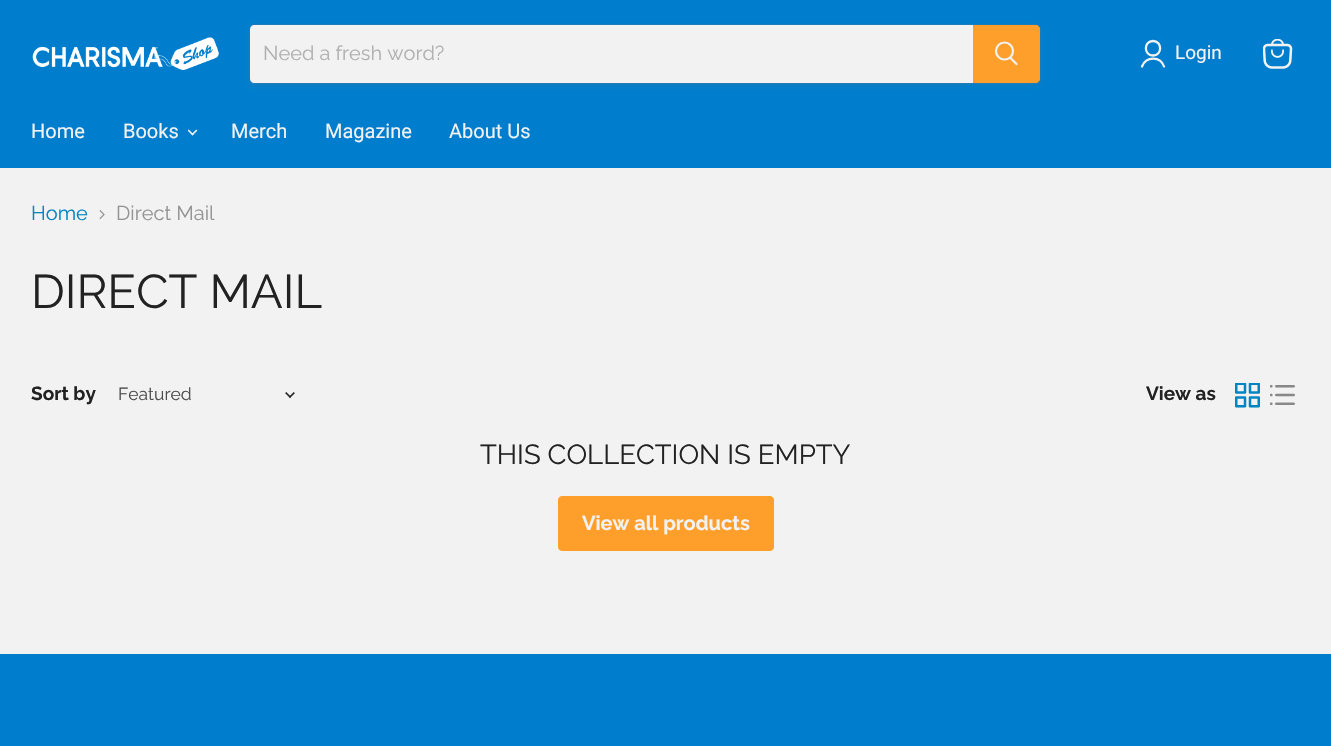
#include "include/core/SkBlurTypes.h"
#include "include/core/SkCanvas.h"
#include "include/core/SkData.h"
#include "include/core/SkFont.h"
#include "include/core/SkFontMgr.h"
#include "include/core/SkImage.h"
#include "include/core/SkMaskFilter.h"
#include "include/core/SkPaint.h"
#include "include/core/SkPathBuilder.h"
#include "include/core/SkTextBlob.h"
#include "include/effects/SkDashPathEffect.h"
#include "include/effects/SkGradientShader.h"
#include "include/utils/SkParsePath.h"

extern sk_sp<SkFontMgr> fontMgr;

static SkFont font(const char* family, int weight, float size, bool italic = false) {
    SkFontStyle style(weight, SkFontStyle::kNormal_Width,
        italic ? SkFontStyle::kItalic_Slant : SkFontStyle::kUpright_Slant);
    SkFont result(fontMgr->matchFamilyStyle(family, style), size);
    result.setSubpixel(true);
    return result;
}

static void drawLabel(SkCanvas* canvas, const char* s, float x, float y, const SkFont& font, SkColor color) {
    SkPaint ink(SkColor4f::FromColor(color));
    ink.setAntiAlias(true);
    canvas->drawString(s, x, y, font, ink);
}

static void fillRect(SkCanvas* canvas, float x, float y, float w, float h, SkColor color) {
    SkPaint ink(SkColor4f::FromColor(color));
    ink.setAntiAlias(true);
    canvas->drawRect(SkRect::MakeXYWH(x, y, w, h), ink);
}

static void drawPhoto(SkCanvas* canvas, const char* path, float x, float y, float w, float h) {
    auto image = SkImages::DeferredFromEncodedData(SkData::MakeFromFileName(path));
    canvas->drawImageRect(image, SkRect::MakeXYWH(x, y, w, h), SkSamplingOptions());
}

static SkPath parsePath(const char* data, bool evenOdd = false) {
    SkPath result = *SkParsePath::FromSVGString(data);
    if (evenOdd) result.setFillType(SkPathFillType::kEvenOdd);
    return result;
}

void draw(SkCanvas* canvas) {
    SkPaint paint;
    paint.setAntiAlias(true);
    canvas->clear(0xFFF2F2F2);
    fillRect(canvas, 0, 0, 1331, 168, 0xFF007DCC);
    drawPhoto(canvas, "assets/img1.png", 32, 37, 187, 33);
    paint.setColor(0x1C797979);
    paint.setMaskFilter(SkMaskFilter::MakeBlur(kNormal_SkBlurStyle, 2));
    canvas->drawRoundRect(SkRect::MakeXYWH(249, 26, 792, 60), 5, 5, paint);
    paint.setMaskFilter(nullptr);
    paint.setStroke(true);
    paint.setStrokeWidth(1);
    paint.setColor(0x33797979);
    canvas->drawRoundRect(SkRect::MakeXYWH(249.5f, 24.5f, 791, 59), 4.5f, 4.5f, paint);
    paint.setStroke(false);
    paint.setColor(0xFFF2F2F2);
    canvas->drawPath(parsePath("M254 25H973V83H254C252 83 250 81 250 79V29C250 27 252 25 254 25Z"), paint);
    SkFont font1 = font("Raleway", 400, 20);
    drawLabel(canvas, "Need a fresh word?", 263, 60, font1, 0xFFB0B0B0);
    paint.setColor(0xFFFF9F2B);
    canvas->drawPath(parsePath("M973.5 25.5H1036C1038 25.5 1039.5 27 1039.5 29V79C1039.5 81 1038 82.5 1036 82.5H973.5Z"), paint);
    paint.setStroke(true);
    canvas->drawPath(parsePath("M973.5 25.5H1036C1038 25.5 1039.5 27 1039.5 29V79C1039.5 81 1038 82.5 1036 82.5H973.5Z"), paint);
    paint.setStrokeWidth(2.2f);
    paint.setStrokeCap(SkPaint::kRound_Cap);
    paint.setColor(0xFFF2F2F2);
    canvas->drawPath(parsePath("M1016.5 64L1010.5 58"), paint);
    paint.setStrokeCap(SkPaint::kButt_Cap);
    canvas->drawCircle(1004.5f, 51, 8.5f, paint);
    paint.setStrokeWidth(2.3f);
    paint.setStrokeCap(SkPaint::kRound_Cap);
    paint.setStrokeJoin(SkPaint::kRound_Join);
    canvas->drawPath(parsePath("M1153 55.5C1162.5 55.5 1162.5 41 1153 41C1143.5 41 1143.5 55.5 1153 55.5ZM1164 66.5C1160.5 56 1146 56 1142 66.5"), paint);
    SkFont font2 = font("Roboto", 400, 19);
    drawLabel(canvas, "Login", 1175, 59, font2, 0xFFF2F2F2);
    drawPhoto(canvas, "assets/img2.png", 1263, 39, 30, 30);
    SkFont font3 = font("Roboto", 400, 20);
    drawLabel(canvas, "Home", 31, 138, font3, 0xFFF2F2F2);
    drawLabel(canvas, "Books", 123, 138, font3, 0xFFF2F2F2);
    drawPhoto(canvas, "assets/img3.png", 188, 129, 10, 7);
    drawLabel(canvas, "Merch", 231, 138, font3, 0xFFF2F2F2);
    drawLabel(canvas, "Magazine", 325, 138, font3, 0xFFF2F2F2);
    drawLabel(canvas, "About Us", 449, 138, font3, 0xFFF2F2F2);
    drawLabel(canvas, "Home", 31, 220, font1, 0xFF0084C2);
    drawPhoto(canvas, "assets/img4.png", 99, 210, 6, 9);
    drawLabel(canvas, "Direct Mail", 116, 220, font1, 0xFF949494);
    SkFont font4 = font("Raleway", 400, 47.25f);
    drawLabel(canvas, "DIRECT MAIL", 31, 308, font4, 0xFF222222);
    SkFont font5 = font("Raleway", 700, 19);
    drawLabel(canvas, "Sort by", 31, 400, font5, 0xFF222222);
    SkFont font6 = font("Raleway", 400, 17.5f);
    drawLabel(canvas, "Featured", 118, 400, font6, 0xFF4D4D4D);
    drawPhoto(canvas, "assets/img5.png", 285, 392, 10, 6);
    drawLabel(canvas, "View as", 1146, 400, font5, 0xFF222222);
    drawPhoto(canvas, "assets/img6.png", 1235, 383, 25, 25);
    drawPhoto(canvas, "assets/img7.png", 1270, 385, 25, 20);
    SkFont font7 = font("Raleway", 400, 27.5f);
    drawLabel(canvas, "THIS COLLECTION IS EMPTY", 480, 464, font7, 0xFF222222);
    paint.setStroke(false);
    paint.setColor(0xFFFF9F2B);
    canvas->drawRoundRect(SkRect::MakeXYWH(558.5f, 496.5f, 215, 54), 3.5f, 3.5f, paint);
    paint.setStroke(true);
    paint.setStrokeWidth(1);
    paint.setStrokeCap(SkPaint::kButt_Cap);
    paint.setStrokeJoin(SkPaint::kMiter_Join);
    canvas->drawRoundRect(SkRect::MakeXYWH(558.5f, 496.5f, 215, 54), 3.5f, 3.5f, paint);
    SkFont font8 = font("Raleway", 700, 20);
    drawLabel(canvas, "View all products", 582, 530, font8, 0xFFF2F2F2);
    fillRect(canvas, 0, 654, 1331, 92, 0xFF007DCC);
}
